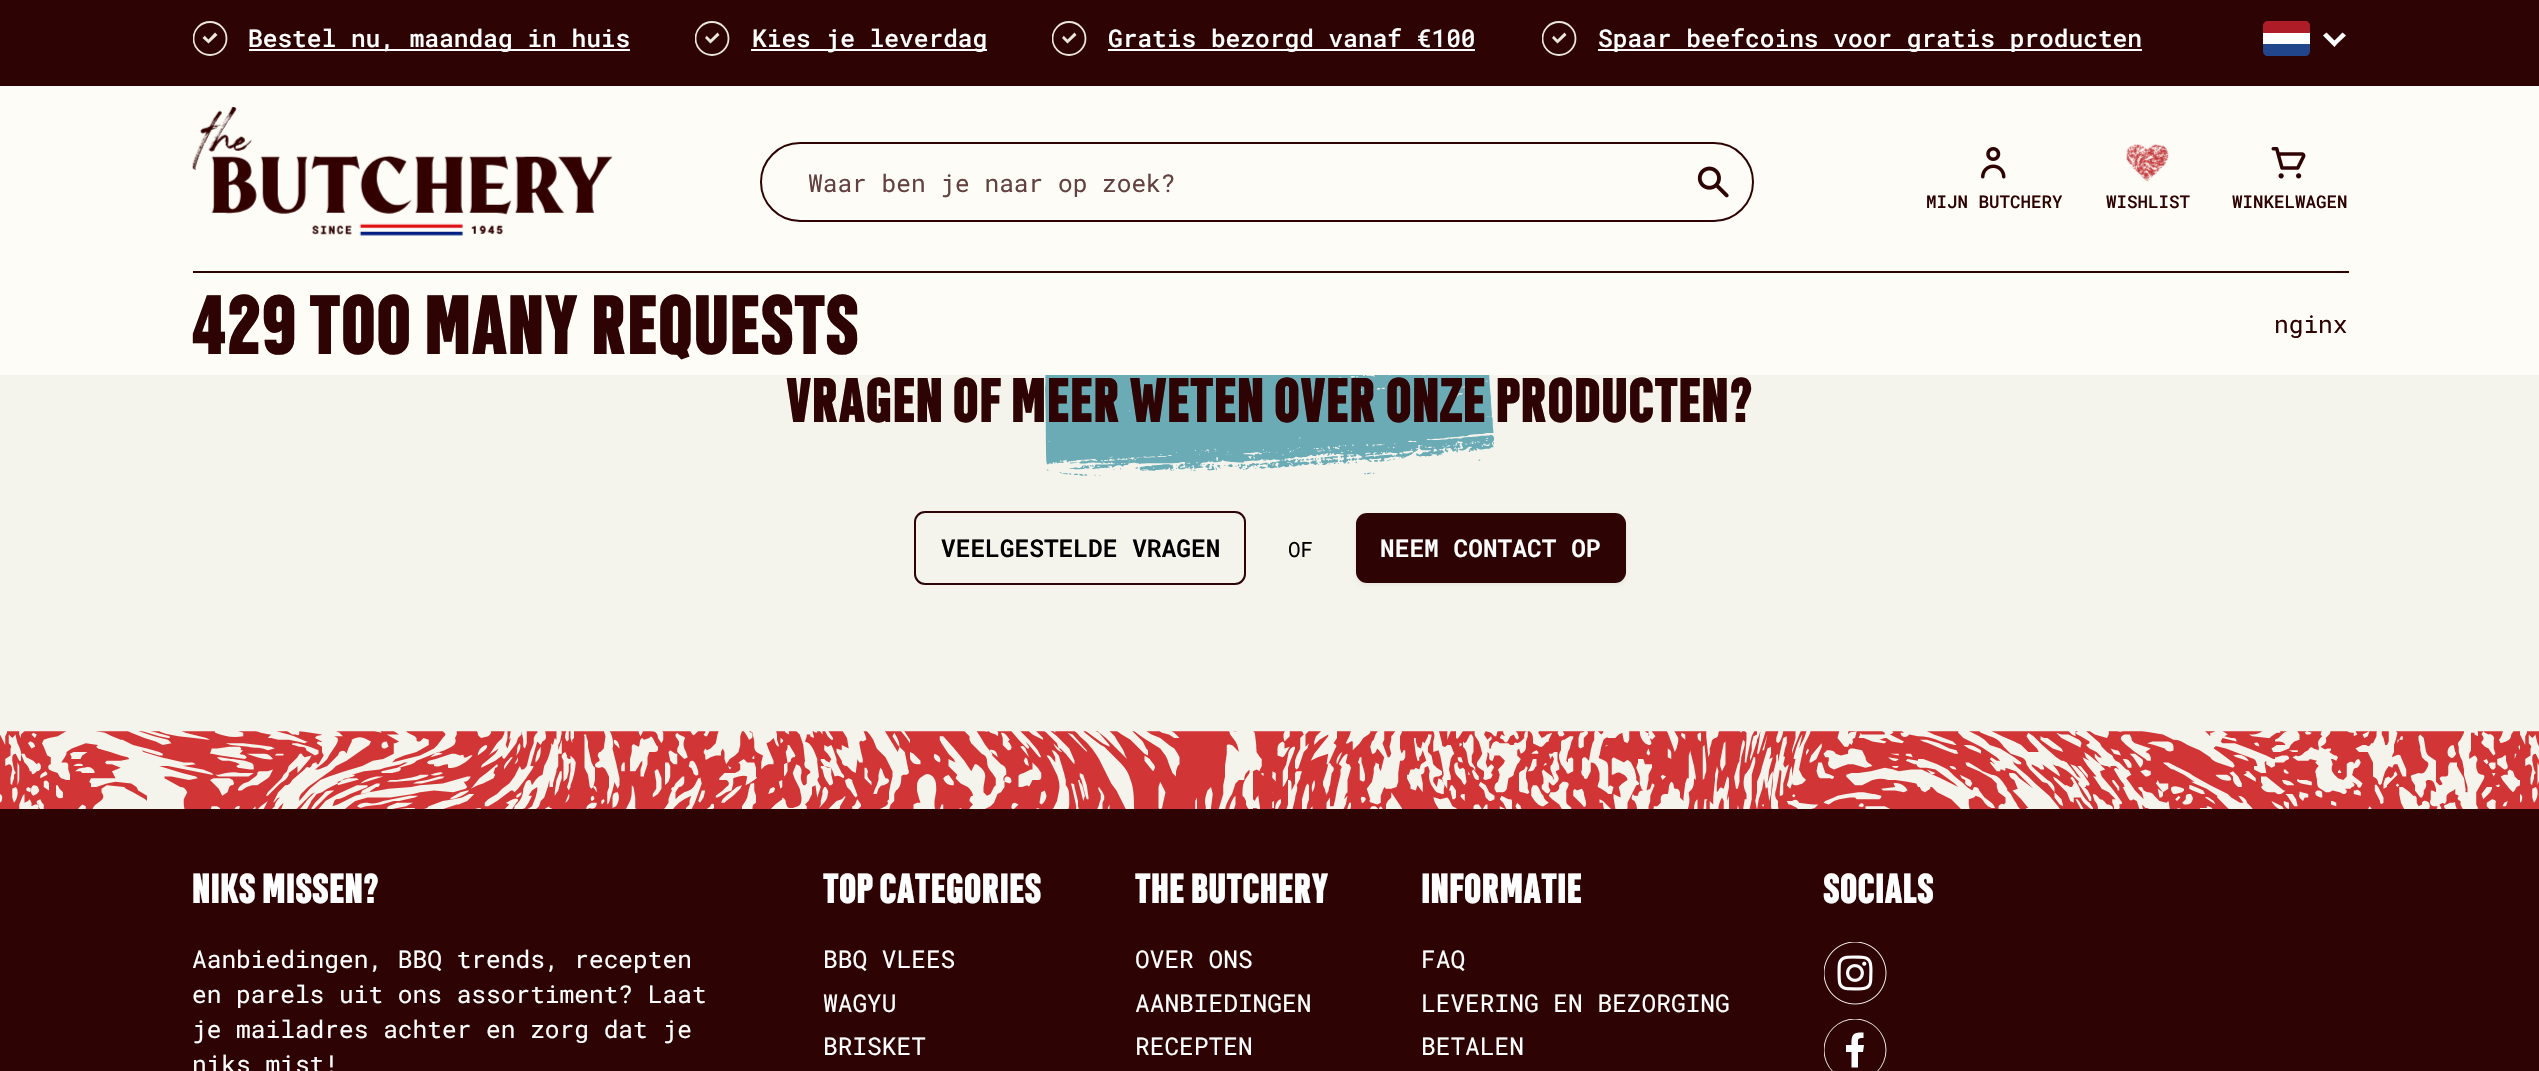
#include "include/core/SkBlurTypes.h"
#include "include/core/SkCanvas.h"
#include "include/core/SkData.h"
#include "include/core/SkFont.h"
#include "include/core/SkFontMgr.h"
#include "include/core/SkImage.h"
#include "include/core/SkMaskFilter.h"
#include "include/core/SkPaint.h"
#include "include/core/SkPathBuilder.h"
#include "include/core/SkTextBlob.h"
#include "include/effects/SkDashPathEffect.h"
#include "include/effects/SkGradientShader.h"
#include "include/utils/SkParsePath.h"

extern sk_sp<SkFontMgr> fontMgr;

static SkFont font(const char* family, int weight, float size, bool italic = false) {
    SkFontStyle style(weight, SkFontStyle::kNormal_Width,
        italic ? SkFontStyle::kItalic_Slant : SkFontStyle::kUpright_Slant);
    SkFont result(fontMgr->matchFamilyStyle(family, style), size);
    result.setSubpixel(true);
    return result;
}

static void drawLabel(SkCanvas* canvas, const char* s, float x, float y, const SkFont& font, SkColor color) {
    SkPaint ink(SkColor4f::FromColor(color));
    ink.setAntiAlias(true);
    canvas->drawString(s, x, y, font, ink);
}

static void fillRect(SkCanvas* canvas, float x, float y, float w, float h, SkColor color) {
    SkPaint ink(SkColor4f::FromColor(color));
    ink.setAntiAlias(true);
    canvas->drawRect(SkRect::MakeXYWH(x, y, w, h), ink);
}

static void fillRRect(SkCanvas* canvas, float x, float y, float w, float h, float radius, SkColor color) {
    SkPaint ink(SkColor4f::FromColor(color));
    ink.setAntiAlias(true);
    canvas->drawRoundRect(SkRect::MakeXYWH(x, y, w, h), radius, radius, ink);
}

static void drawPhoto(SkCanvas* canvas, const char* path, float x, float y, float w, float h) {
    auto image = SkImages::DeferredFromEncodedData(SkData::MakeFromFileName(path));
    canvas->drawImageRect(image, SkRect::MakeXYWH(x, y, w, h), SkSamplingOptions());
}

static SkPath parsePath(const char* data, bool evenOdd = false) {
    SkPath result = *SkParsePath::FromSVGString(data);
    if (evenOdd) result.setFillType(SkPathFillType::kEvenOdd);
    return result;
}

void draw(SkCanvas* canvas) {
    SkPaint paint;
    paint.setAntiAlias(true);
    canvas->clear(0xFFF4F3EC);
    fillRect(canvas, 0, 86, 2539, 289, 0xFFFDFCF7);
    fillRect(canvas, 0, 0, 2539, 86, 0xFF2E0303);
    canvas->save();
    canvas->clipRect(SkRect::MakeXYWH(193, 21, 35, 35));
    paint.setStroke(true);
    paint.setStrokeWidth(1.8f);
    paint.setColor(0xFFEAE6DE);
    canvas->drawCircle(210, 38.5f, 16.5f, paint);
    canvas->restore();
    paint.setStroke(false);
    canvas->drawPath(parsePath("M205 36L208.5 39.5L215 32.5L217.5 35L208.5 43.5L202.5 38L205 35.5Z", true), paint);
    fillRect(canvas, 249, 49, 381, 2, 0xFFFFFFFF);
    SkFont font1 = font("Roboto Mono", 500, 24.5f);
    drawLabel(canvas, "Bestel nu, maandag in huis", 248, 47, font1, 0xFFFFFFFF);
    canvas->save();
    canvas->clipRect(SkRect::MakeXYWH(695, 21, 35, 35));
    paint.setStroke(true);
    canvas->drawCircle(712, 38.5f, 16.5f, paint);
    canvas->restore();
    paint.setStroke(false);
    canvas->drawPath(parsePath("M707 36L710.5 39.5L717.5 32.5L719.5 35L710.5 43.5L705 38L707 35.5Z", true), paint);
    fillRect(canvas, 751, 49, 236, 2, 0xFFFFFFFF);
    drawLabel(canvas, "Kies je leverdag", 752, 47, font1, 0xFFFFFFFF);
    canvas->save();
    canvas->clipRect(SkRect::MakeXYWH(1052, 21, 35, 35));
    paint.setStroke(true);
    canvas->drawCircle(1069, 38.5f, 16.5f, paint);
    canvas->restore();
    paint.setStroke(false);
    canvas->drawPath(parsePath("M1064 36L1067.5 39.5L1074.5 32.5L1076.5 35L1067.5 43.5L1062 38L1064 35.5Z", true), paint);
    fillRect(canvas, 1108, 49, 367, 2, 0xFFFFFFFF);
    drawLabel(canvas, "Gratis bezorgd vanaf €100", 1108, 47, font1, 0xFFFFFFFF);
    canvas->save();
    canvas->clipRect(SkRect::MakeXYWH(1542, 21, 35, 35));
    paint.setStroke(true);
    canvas->drawCircle(1559, 38.5f, 16.5f, paint);
    canvas->restore();
    paint.setStroke(false);
    canvas->drawPath(parsePath("M1554 36L1557.5 39.5L1564.5 32.5L1566.5 35L1557.5 43.5L1552 38L1554 35.5Z", true), paint);
    fillRect(canvas, 1598, 49, 544, 2, 0xFFFFFFFF);
    drawLabel(canvas, "Spaar beefcoins voor gratis producten", 1598, 47, font1, 0xFFFFFFFF);
    paint.setColor(0xFFAE1C28);
    canvas->drawPath(parsePath("M2268 21H2305C2308 21 2310 23 2310 26V33H2263V26C2263 23 2265 21 2268 21Z"), paint);
    fillRect(canvas, 2263, 33, 47, 11, 0xFFFFFFFF);
    paint.setColor(0xFF21468B);
    canvas->drawPath(parsePath("M2263 44H2310V51C2310 54 2308 56 2305 56H2268C2265 56 2263 54 2263 51Z"), paint);
    paint.setColor(0xFFFFFFFF);
    canvas->drawPath(parsePath("M2337.5 43.5L2346 35.5L2342.5 32.5L2334.5 40.5L2326.5 32.5L2323 35.5L2334.5 47Z"), paint);
    fillRect(canvas, 193, 271, 2156, 2, 0xFF2E0303);
    drawPhoto(canvas, "assets/img1.png", 192, 107, 421, 129);
    paint.setStroke(true);
    paint.setStrokeWidth(2);
    paint.setColor(0xFF2E0303);
    canvas->drawRoundRect(SkRect::MakeXYWH(761, 143, 992, 78), 39, 39, paint);
    SkFont font2 = font("Roboto Mono", 400, 24.5f);
    drawLabel(canvas, "Waar ben je naar op zoek?", 808, 192, font2, 0xFF624140);
    drawPhoto(canvas, "assets/img2.png", 1697, 166, 32, 32);
    drawPhoto(canvas, "assets/img3.png", 1981, 147, 25, 32);
    SkFont font3 = font("Roboto Mono", 500, 17.5f);
    drawLabel(canvas, "MIJN BUTCHERY", 1926, 208, font3, 0xFF2E0303);
    drawPhoto(canvas, "assets/img4.png", 2126, 144, 43, 37);
    drawLabel(canvas, "WISHLIST", 2106, 208, font3, 0xFF2E0303);
    drawPhoto(canvas, "assets/img5.png", 2271, 147, 35, 32);
    drawLabel(canvas, "WINKELWAGEN", 2232, 208, font3, 0xFF2E0303);
    SkFont font4 = font("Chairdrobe", 900, 84);
    drawLabel(canvas, "429 TOO MANY REQUESTS", 192, 354, font4, 0xFF2E0303);
    drawLabel(canvas, "nginx", 2274, 333, font2, 0xFF2E0303);
    drawPhoto(canvas, "assets/img6.png", 1045, 375, 449, 101);
    SkFont font5 = font("Chairdrobe", 900, 63);
    drawLabel(canvas, "VRAGEN OF MEER WETEN OVER ONZE PRODUCTEN?", 786, 422, font5, 0xFF2E0303);
    canvas->drawRoundRect(SkRect::MakeXYWH(915, 512, 330, 72), 10, 10, paint);
    SkFont font6 = font("Roboto Mono", 600, 24.5f);
    drawLabel(canvas, "VEELGESTELDE VRAGEN", 941, 557, font6, 0xFF000000);
    SkFont font7 = font("Roboto Mono", 400, 21);
    drawLabel(canvas, "OF", 1288, 557, font7, 0xFF000000);
    paint.setStroke(false);
    paint.setColor(0x0D000000);
    paint.setMaskFilter(SkMaskFilter::MakeBlur(kNormal_SkBlurStyle, 2));
    canvas->drawRoundRect(SkRect::MakeXYWH(1356, 515, 270, 70), 11, 11, paint);
    paint.setMaskFilter(nullptr);
    fillRRect(canvas, 1356, 513, 270, 70, 11, 0xFF2E0303);
    drawLabel(canvas, "NEEM CONTACT OP", 1380, 557, font6, 0xFFFFFFFF);
    drawPhoto(canvas, "assets/img7.png", 0, 731, 2539, 78);
    fillRect(canvas, 0, 809, 2539, 262, 0xFF2E0303);
    SkFont font8 = font("Chairdrobe", 900, 42);
    drawLabel(canvas, "NIKS MISSEN?", 192, 903, font8, 0xFFFFFFFF);
    drawLabel(canvas, "Aanbiedingen, BBQ trends, recepten", 192, 968, font2, 0xFFFFFFFF);
    drawLabel(canvas, "en parels uit ons assortiment? Laat", 192, 1003, font2, 0xFFFFFFFF);
    drawLabel(canvas, "je mailadres achter en zorg dat je", 192, 1038, font2, 0xFFFFFFFF);
    drawLabel(canvas, "niks mist!", 192, 1073, font2, 0xFFFFFFFF);
    drawLabel(canvas, "TOP CATEGORIES", 823, 903, font8, 0xFFFFFFFF);
    drawLabel(canvas, "BBQ VLEES", 823, 968, font2, 0xFFFFFFFF);
    drawLabel(canvas, "WAGYU", 823, 1012, font2, 0xFFFFFFFF);
    drawLabel(canvas, "BRISKET", 823, 1055, font2, 0xFFFFFFFF);
    drawLabel(canvas, "THE BUTCHERY", 1135, 903, font8, 0xFFFFFFFF);
    drawLabel(canvas, "OVER ONS", 1135, 968, font2, 0xFFFFFFFF);
    drawLabel(canvas, "AANBIEDINGEN", 1135, 1012, font2, 0xFFFFFFFF);
    drawLabel(canvas, "RECEPTEN", 1135, 1055, font2, 0xFFFFFFFF);
    drawLabel(canvas, "INFORMATIE", 1421, 903, font8, 0xFFFFFFFF);
    drawLabel(canvas, "FAQ", 1421, 968, font2, 0xFFFFFFFF);
    drawLabel(canvas, "LEVERING EN BEZORGING", 1421, 1012, font2, 0xFFFFFFFF);
    drawLabel(canvas, "BETALEN", 1421, 1055, font2, 0xFFFFFFFF);
    drawLabel(canvas, "SOCIALS", 1823, 903, font8, 0xFFFFFFFF);
    drawPhoto(canvas, "assets/img8.png", 1824, 942, 63, 63);
    canvas->save();
    canvas->clipRect(SkRect::MakeXYWH(1824, 1019, 63, 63));
    paint.setStroke(true);
    paint.setStrokeWidth(0.9f);
    paint.setColor(0xFFFFFFFF);
    canvas->drawCircle(1855, 1050, 31, paint);
    canvas->restore();
    paint.setStroke(false);
    canvas->drawPath(parsePath("M1858 1067.5V1052H1863L1864 1045H1858C1858 1039 1857 1038 1863.5 1038V1032.5H1859C1851 1033 1851.5 1039 1851.5 1045H1846V1052H1851.5V1067.5Z", true), paint);
}
